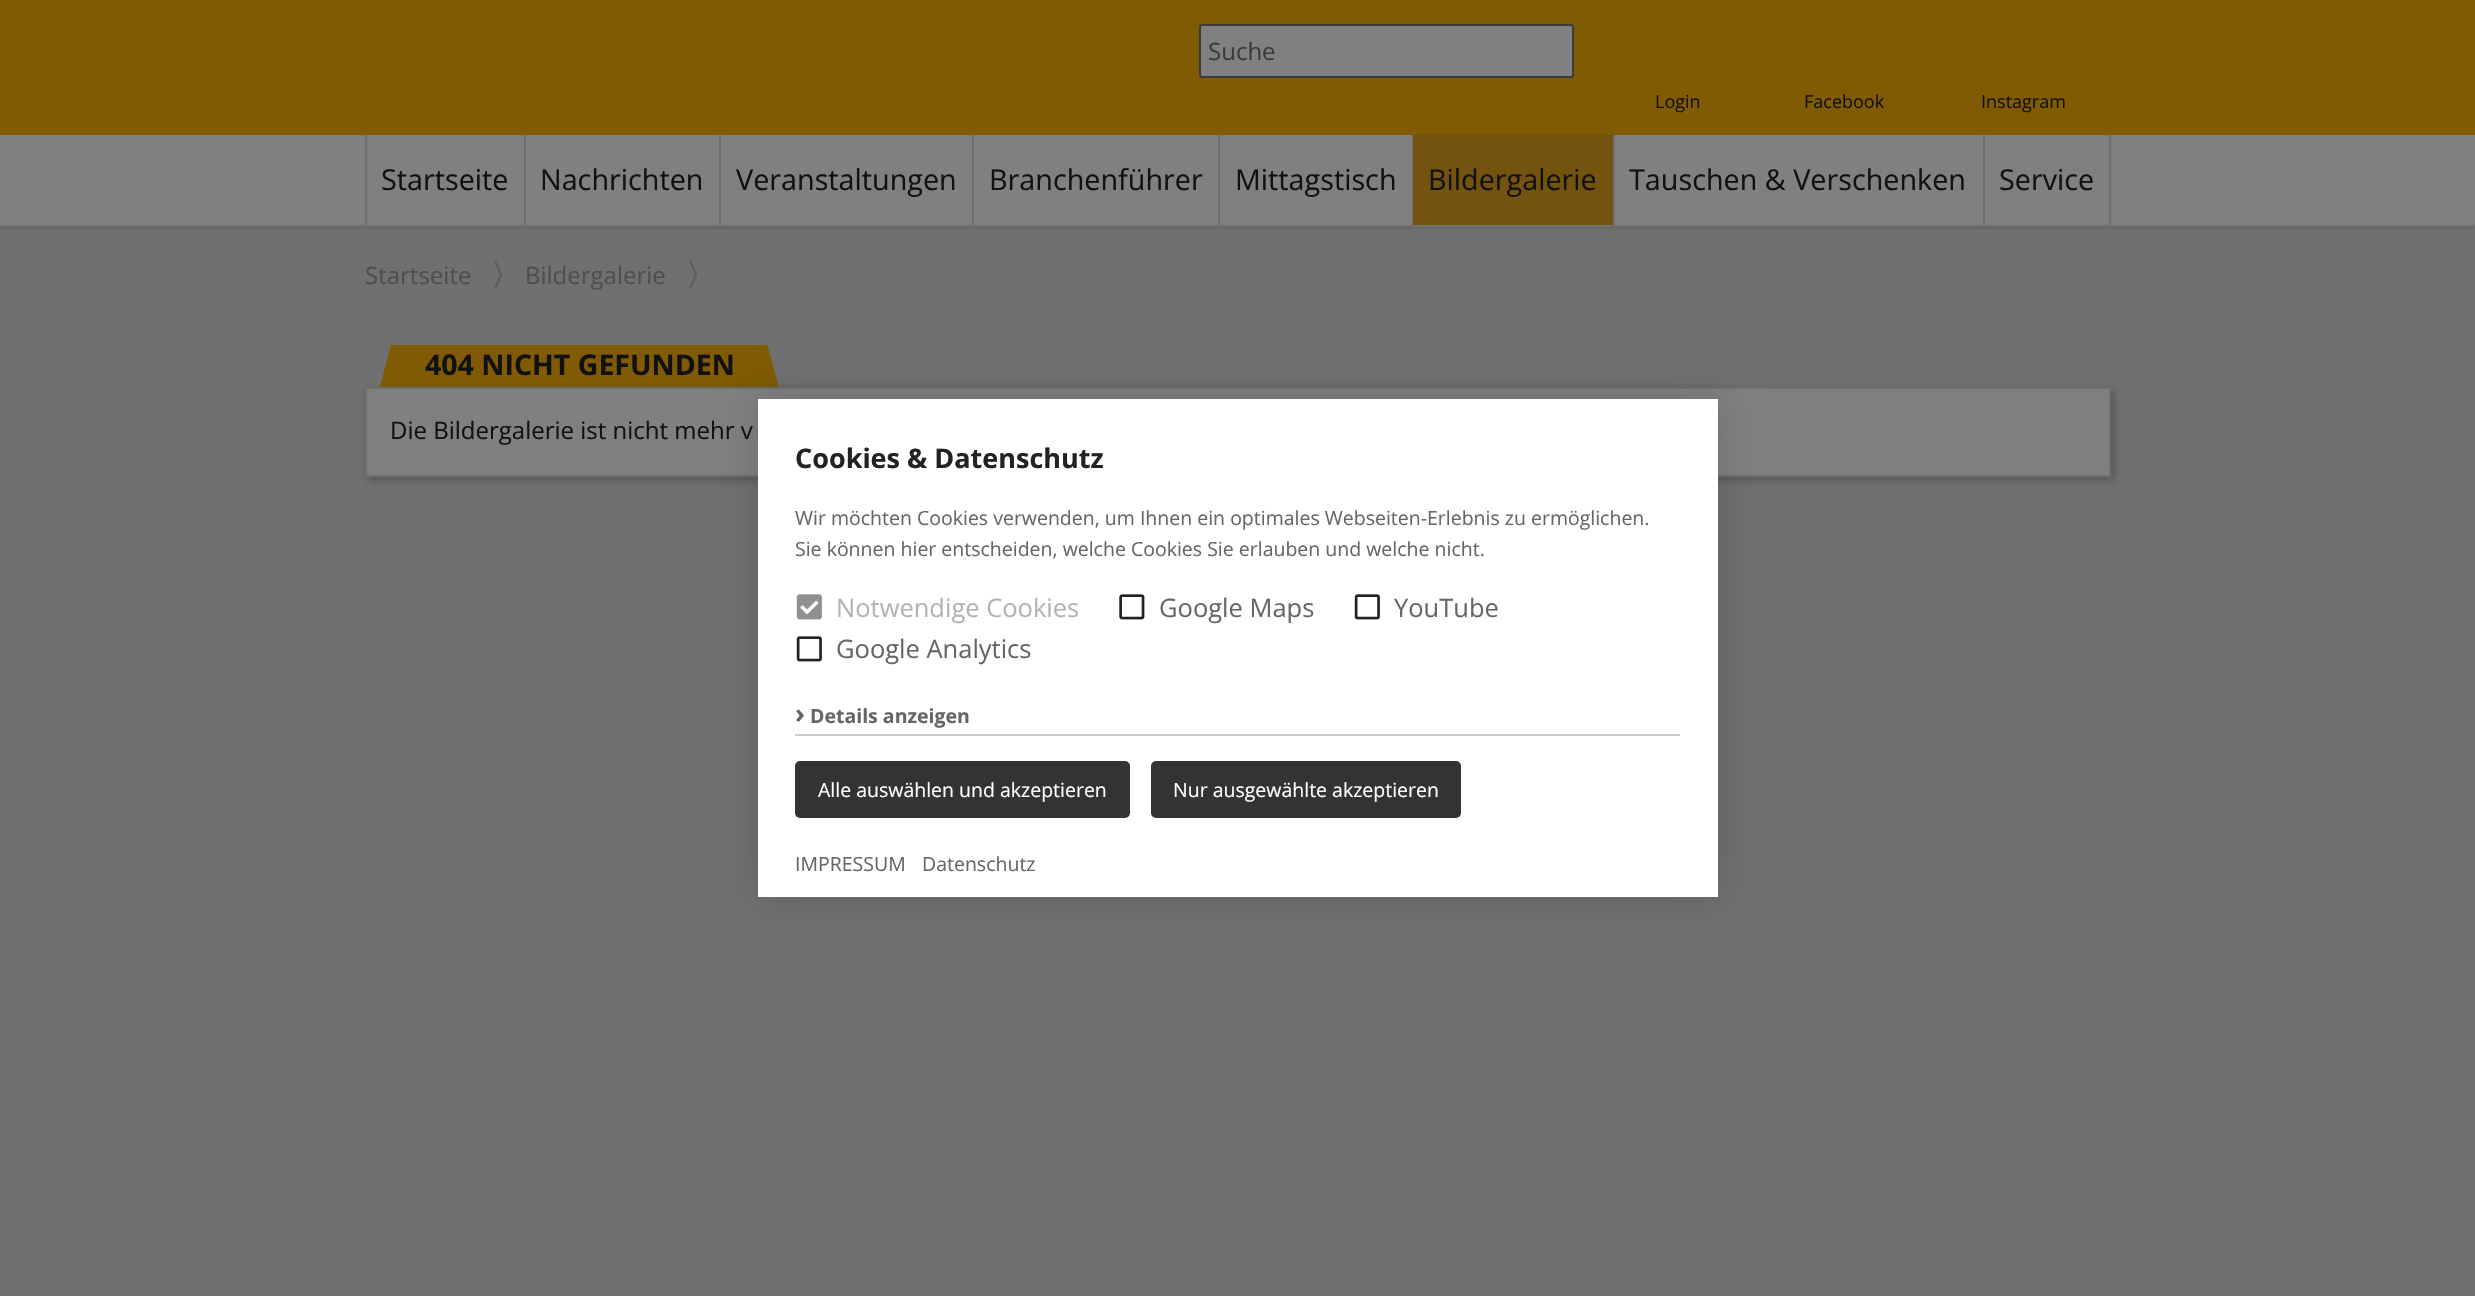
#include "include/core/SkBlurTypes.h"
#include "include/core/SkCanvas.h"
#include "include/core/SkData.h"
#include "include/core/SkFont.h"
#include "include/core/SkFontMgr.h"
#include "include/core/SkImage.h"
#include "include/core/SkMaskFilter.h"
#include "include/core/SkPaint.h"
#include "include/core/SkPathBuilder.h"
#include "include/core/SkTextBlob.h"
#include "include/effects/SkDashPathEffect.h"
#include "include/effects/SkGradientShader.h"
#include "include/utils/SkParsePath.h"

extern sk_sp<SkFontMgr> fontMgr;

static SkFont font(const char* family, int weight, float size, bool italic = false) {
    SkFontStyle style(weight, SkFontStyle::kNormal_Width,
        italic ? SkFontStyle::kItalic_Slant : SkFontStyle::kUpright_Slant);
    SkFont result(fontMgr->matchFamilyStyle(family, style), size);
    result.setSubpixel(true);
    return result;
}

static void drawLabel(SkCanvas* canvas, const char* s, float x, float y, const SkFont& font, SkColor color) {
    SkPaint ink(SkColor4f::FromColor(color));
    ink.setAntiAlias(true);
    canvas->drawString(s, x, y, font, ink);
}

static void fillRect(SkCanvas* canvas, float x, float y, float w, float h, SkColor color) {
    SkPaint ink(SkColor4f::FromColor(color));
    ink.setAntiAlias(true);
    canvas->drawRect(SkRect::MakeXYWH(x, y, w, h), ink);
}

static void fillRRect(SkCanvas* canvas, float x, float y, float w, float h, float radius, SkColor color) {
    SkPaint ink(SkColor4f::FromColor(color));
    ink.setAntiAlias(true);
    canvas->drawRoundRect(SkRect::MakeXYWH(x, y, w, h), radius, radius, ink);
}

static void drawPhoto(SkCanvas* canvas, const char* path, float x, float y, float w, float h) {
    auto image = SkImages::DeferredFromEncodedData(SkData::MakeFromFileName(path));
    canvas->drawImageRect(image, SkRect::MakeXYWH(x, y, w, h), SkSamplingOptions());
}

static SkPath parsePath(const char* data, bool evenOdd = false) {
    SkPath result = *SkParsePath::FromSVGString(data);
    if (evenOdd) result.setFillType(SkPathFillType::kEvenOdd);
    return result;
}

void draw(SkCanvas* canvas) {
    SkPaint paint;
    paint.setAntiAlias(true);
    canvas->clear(0xFF717070);
    fillRect(canvas, 0, 0, 2475, 135, 0xFF805B04);
    paint.setColor(0xFF808080);
    canvas->drawRoundRect(SkRect::MakeXYWH(1200, 25, 373, 52), 2, 2, paint);
    paint.setStroke(true);
    paint.setStrokeWidth(2);
    paint.setColor(0xFF3B3B3B);
    canvas->drawRoundRect(SkRect::MakeXYWH(1200, 25, 373, 52), 2, 2, paint);
    SkFont font1 = font("Open Sans", 400, 24);
    drawLabel(canvas, "Suche", 1208, 60, font1, 0xFF3B3B3B);
    SkFont font2 = font("Open Sans", 400, 18);
    drawLabel(canvas, "Login", 1655, 108, font2, 0xFF111111);
    drawLabel(canvas, "Facebook", 1804, 108, font2, 0xFF111111);
    drawLabel(canvas, "Instagram", 1981, 108, font2, 0xFF111111);
    paint.setStroke(false);
    paint.setColor(0x26000000);
    paint.setMaskFilter(SkMaskFilter::MakeBlur(kNormal_SkBlurStyle, 1.5f));
    canvas->drawRect(SkRect::MakeXYWH(0, 137, 2475, 91), paint);
    paint.setMaskFilter(nullptr);
    fillRect(canvas, 0, 135, 2475, 90, 0xFF808080);
    fillRect(canvas, 0, 225, 2475, 2, 0xFF6F6F6F);
    fillRect(canvas, 524, 135, 2, 90, 0xFF6F6F6F);
    fillRect(canvas, 365, 135, 2, 90, 0xFF6F6F6F);
    SkFont font3 = font("Open Sans", 400, 28.75f);
    drawLabel(canvas, "Startseite", 381, 190, font3, 0xFF111111);
    fillRect(canvas, 719, 135, 2, 90, 0xFF6F6F6F);
    drawLabel(canvas, "Nachrichten", 540, 190, font3, 0xFF111111);
    fillRect(canvas, 972, 135, 2, 90, 0xFF6F6F6F);
    drawLabel(canvas, "Veranstaltungen", 736, 190, font3, 0xFF111111);
    fillRect(canvas, 1218, 135, 2, 90, 0xFF6F6F6F);
    drawLabel(canvas, "Branchenführer", 989, 190, font3, 0xFF111111);
    fillRect(canvas, 1412, 135, 1, 90, 0xFF6F6F6F);
    drawLabel(canvas, "Mittagstisch", 1235, 190, font3, 0xFF111111);
    fillRect(canvas, 1613, 135, 2, 90, 0xFF6F6F6F);
    fillRect(canvas, 1413, 135, 200, 90, 0xFF73530D);
    drawLabel(canvas, "Bildergalerie", 1428, 190, font3, 0xFF111111);
    fillRect(canvas, 1983, 135, 2, 90, 0xFF6F6F6F);
    drawLabel(canvas, "Tauschen & Verschenken", 1629, 190, font3, 0xFF111111);
    fillRect(canvas, 2109, 135, 2, 90, 0xFF6F6F6F);
    drawLabel(canvas, "Service", 1999, 190, font3, 0xFF111111);
    drawLabel(canvas, "Startseite", 365, 284, font1, 0xFF4D4D4D);
    SkFont font4 = font("FreeSans", 400, 31);
    drawLabel(canvas, "〉", 493, 284, font4, 0xFF5E5E5E);
    drawLabel(canvas, "Bildergalerie", 525, 284, font1, 0xFF4D4D4D);
    drawLabel(canvas, "〉", 688, 284, font4, 0xFF5E5E5E);
    fillRect(canvas, 379, 345, 400, 42, 0xFF805B04);
    canvas->save();
    canvas->clipRect(SkRect::MakeXYWH(365, 345, 430, 42));
    paint.setColor(0xFF717070);
    canvas->drawPath(parsePath("M324 306L396 325L375 406L303 386Z"), paint);
    canvas->restore();
    SkFont font5 = font("Open Sans", 700, 28.5f);
    drawLabel(canvas, "404 NICHT GEFUNDEN", 425, 375, font5, 0xFF111111);
    canvas->save();
    canvas->clipRect(SkRect::MakeXYWH(365, 345, 430, 42));
    canvas->drawPath(parsePath("M762 325L835 306L856 386L784 406Z"), paint);
    canvas->restore();
    paint.setColor(0x40000000);
    paint.setMaskFilter(SkMaskFilter::MakeBlur(kNormal_SkBlurStyle, 4));
    canvas->drawRect(SkRect::MakeXYWH(368, 390, 1746, 90), paint);
    paint.setMaskFilter(nullptr);
    paint.setColor(0xFF808080);
    canvas->drawRect(SkRect::MakeXYWH(366, 388, 1744, 88), paint);
    paint.setStroke(true);
    paint.setColor(0xFF6F6F6F);
    canvas->drawRect(SkRect::MakeXYWH(366, 388, 1744, 88), paint);
    drawLabel(canvas, "Die Bildergalerie ist nicht mehr v", 390, 439, font1, 0xFF111111);
    paint.setStroke(false);
    paint.setColor(0x26000000);
    paint.setMaskFilter(SkMaskFilter::MakeBlur(kNormal_SkBlurStyle, 19));
    canvas->drawRect(SkRect::MakeXYWH(758, 399, 960, 498), paint);
    paint.setMaskFilter(nullptr);
    fillRect(canvas, 758, 399, 960, 498, 0xFFFFFFFF);
    SkFont font6 = font("Open Sans", 700, 27);
    drawLabel(canvas, "Cookies & Datenschutz", 795, 468, font6, 0xFF222222);
    SkFont font7 = font("Open Sans", 400, 19.5f);
    drawLabel(canvas, "Wir möchten Cookies verwenden, um Ihnen ein optimales Webseiten-Erlebnis zu ermöglichen.", 795, 525, font7, 0xFF666666);
    drawLabel(canvas, "Sie können hier entscheiden, welche Cookies Sie erlauben und welche nicht.", 795, 556, font7, 0xFF666666);
    drawPhoto(canvas, "assets/img1.png", 796, 594, 26, 26);
    SkFont font8 = font("Open Sans", 400, 25.5f);
    drawLabel(canvas, "Notwendige Cookies", 836, 617, font8, 0xFFB3B3B3);
    drawPhoto(canvas, "assets/img2.png", 1119, 594, 26, 26);
    drawLabel(canvas, "Google Maps", 1159, 617, font8, 0xFF666666);
    drawPhoto(canvas, "assets/img3.png", 1354, 594, 26, 26);
    drawLabel(canvas, "YouTube", 1394, 617, font8, 0xFF666666);
    drawPhoto(canvas, "assets/img3.png", 796, 636, 26, 26);
    drawLabel(canvas, "Google Analytics", 836, 658, font8, 0xFF666666);
    drawLabel(canvas, "›", 795, 723, font6, 0xFF666666);
    SkFont font9 = font("Open Sans", 700, 19.5f);
    drawLabel(canvas, "Details anzeigen", 810, 723, font9, 0xFF666666);
    fillRect(canvas, 795, 734, 885, 2, 0xFFCCCCCC);
    fillRRect(canvas, 795, 761, 335, 57, 5, 0xFF333333);
    drawLabel(canvas, "Alle auswählen und akzeptieren", 818, 797, font7, 0xFFFFFFFF);
    fillRRect(canvas, 1151, 761, 310, 57, 5, 0xFF333333);
    drawLabel(canvas, "Nur ausgewählte akzeptieren", 1173, 797, font7, 0xFFFFFFFF);
    drawLabel(canvas, "IMPRESSUM", 795, 871, font7, 0xFF666666);
    drawLabel(canvas, "Datenschutz", 922, 871, font7, 0xFF666666);
}
